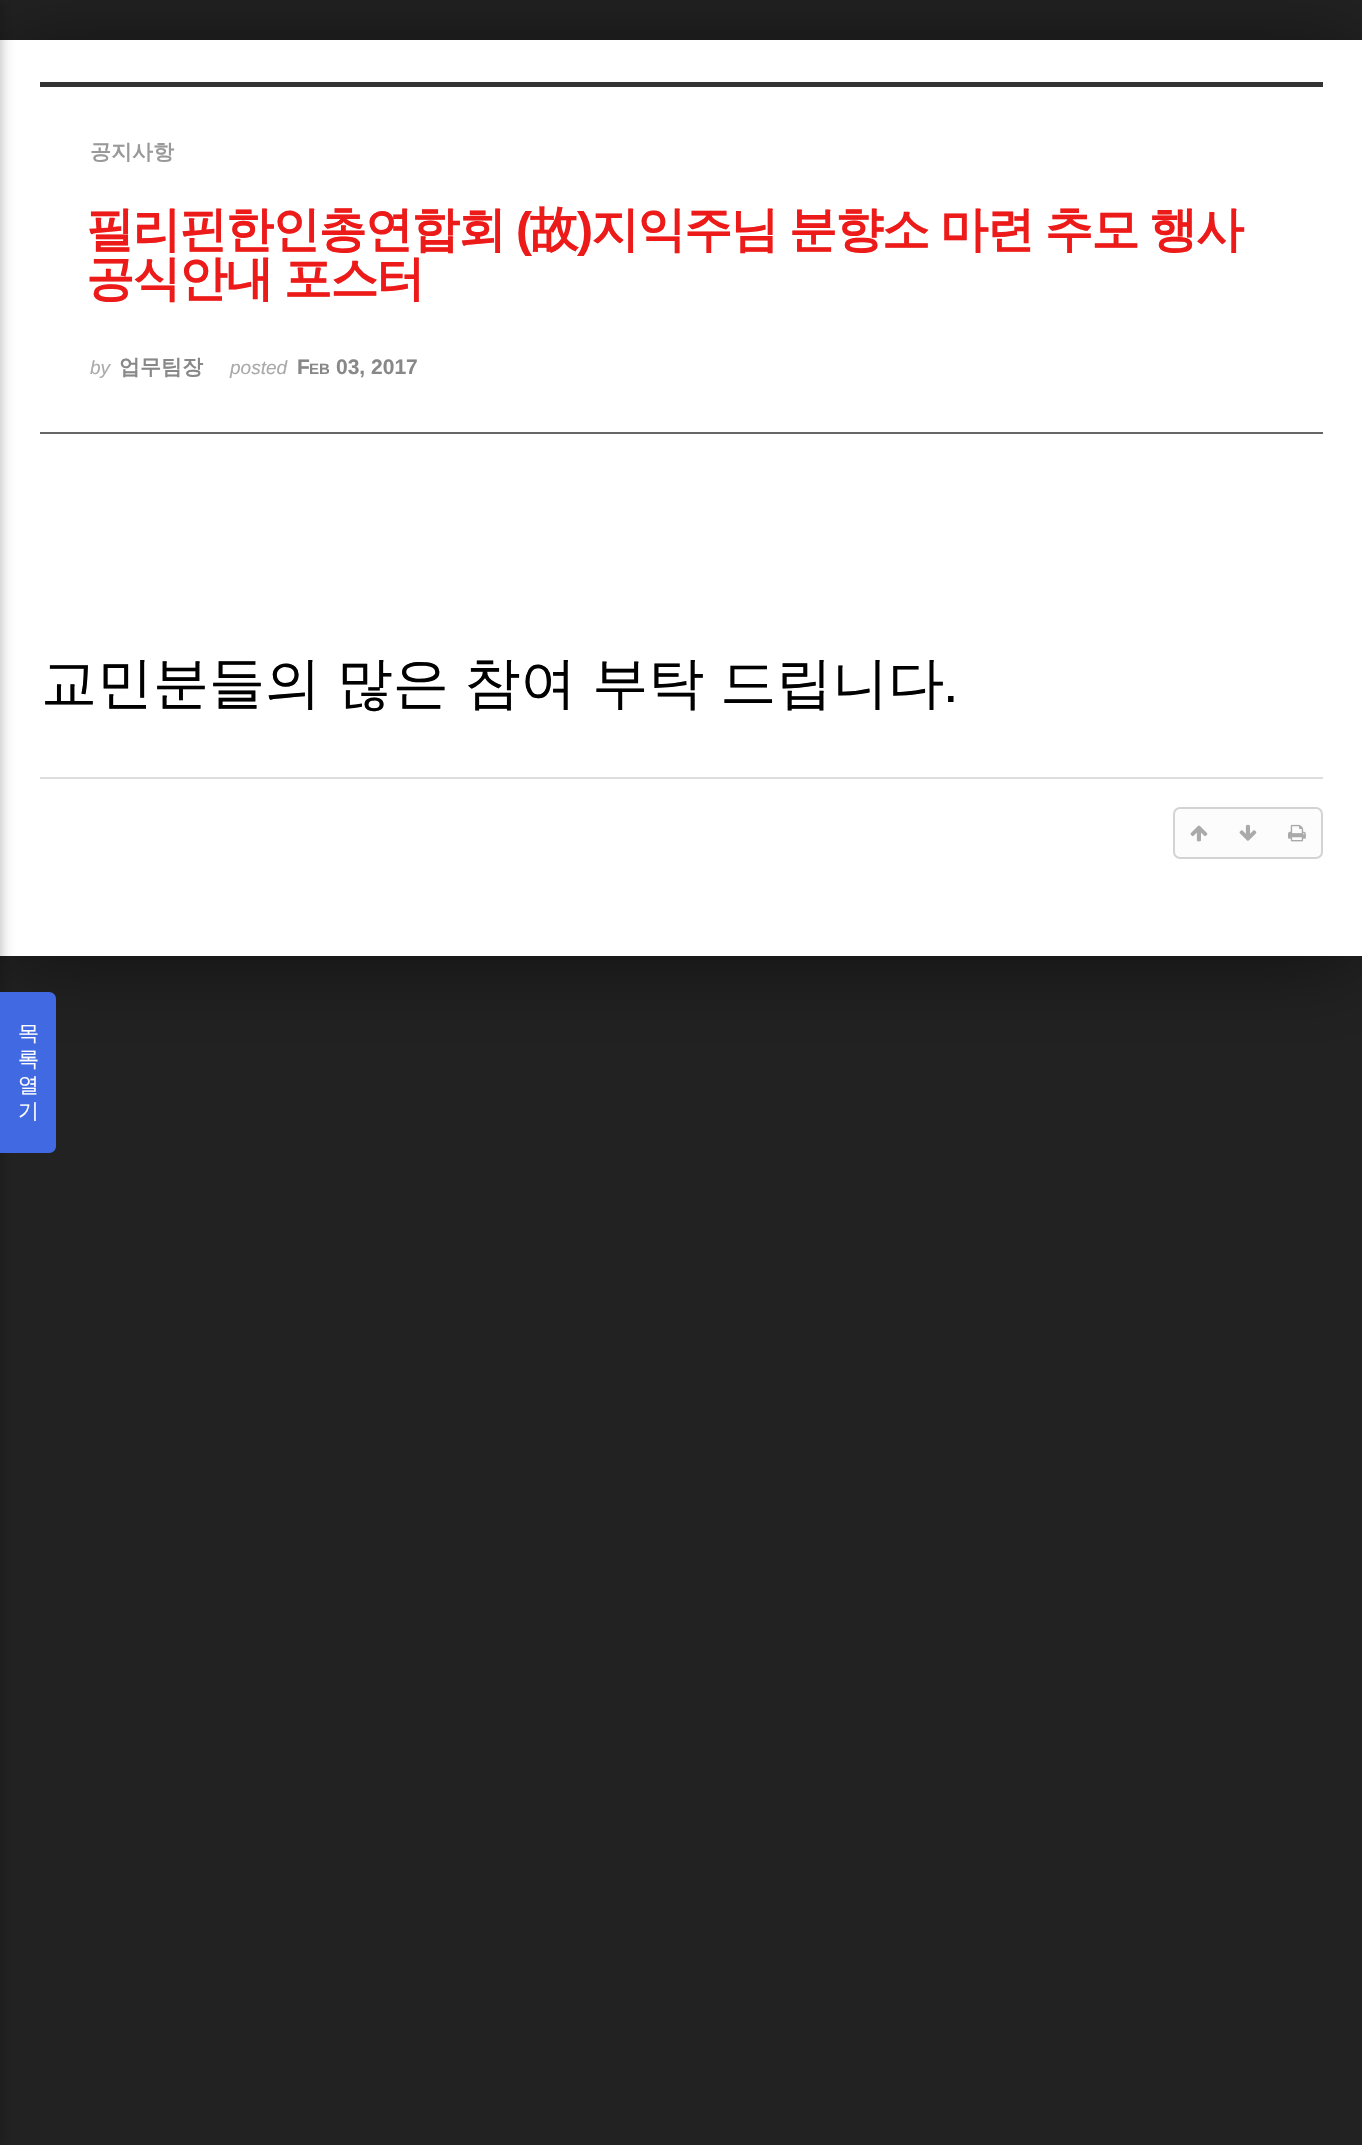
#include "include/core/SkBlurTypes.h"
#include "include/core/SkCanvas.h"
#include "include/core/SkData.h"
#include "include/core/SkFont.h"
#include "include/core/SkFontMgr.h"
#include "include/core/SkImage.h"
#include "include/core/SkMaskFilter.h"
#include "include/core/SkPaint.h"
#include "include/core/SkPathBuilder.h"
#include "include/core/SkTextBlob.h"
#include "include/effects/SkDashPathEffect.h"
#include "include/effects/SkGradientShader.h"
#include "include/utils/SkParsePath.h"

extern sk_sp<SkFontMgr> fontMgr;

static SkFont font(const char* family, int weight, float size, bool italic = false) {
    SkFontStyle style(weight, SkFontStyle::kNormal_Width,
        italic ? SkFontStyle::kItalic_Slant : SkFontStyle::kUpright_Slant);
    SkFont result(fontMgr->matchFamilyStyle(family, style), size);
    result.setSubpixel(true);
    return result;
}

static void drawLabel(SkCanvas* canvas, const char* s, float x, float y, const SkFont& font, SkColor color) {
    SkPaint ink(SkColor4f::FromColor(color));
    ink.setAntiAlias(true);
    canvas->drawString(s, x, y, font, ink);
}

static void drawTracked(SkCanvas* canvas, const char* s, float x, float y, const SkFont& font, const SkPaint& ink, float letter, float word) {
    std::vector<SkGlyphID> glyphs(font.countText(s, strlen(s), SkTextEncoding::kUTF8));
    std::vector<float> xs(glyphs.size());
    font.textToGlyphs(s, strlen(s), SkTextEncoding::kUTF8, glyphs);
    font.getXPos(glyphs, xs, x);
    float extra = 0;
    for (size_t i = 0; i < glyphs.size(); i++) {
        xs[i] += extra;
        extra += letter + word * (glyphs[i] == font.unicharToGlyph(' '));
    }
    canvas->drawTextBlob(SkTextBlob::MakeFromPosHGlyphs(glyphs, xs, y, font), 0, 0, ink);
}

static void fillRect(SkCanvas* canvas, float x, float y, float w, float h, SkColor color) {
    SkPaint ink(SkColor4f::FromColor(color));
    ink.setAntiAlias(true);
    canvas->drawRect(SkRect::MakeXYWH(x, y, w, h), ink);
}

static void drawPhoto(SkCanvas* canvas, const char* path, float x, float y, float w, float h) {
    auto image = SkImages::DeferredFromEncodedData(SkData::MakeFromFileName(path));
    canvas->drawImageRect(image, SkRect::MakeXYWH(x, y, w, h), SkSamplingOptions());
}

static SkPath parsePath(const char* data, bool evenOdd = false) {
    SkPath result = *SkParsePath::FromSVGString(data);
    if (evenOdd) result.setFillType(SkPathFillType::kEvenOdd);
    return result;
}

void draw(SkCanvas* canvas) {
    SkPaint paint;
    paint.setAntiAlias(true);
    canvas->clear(0xFF222222);
    paint.setColor(0x80000000);
    paint.setMaskFilter(SkMaskFilter::MakeBlur(kNormal_SkBlurStyle, 42));
    canvas->drawRect(SkRect::MakeXYWH(0, 47, 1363, 916), paint);
    paint.setMaskFilter(nullptr);
    fillRect(canvas, 0, 40, 1362, 916, 0xFFFFFFFF);
    fillRect(canvas, 40, 82, 1283, 5, 0xFF333333);
    fillRect(canvas, 40, 432, 1283, 2, 0xFF666666);
    SkFont font1 = font("WenQuanYi Zen Hei", 700, 21);
    drawLabel(canvas, "공지사항", 90, 159, font1, 0xFF999999);
    SkFont font2 = font("WenQuanYi Zen Hei", 700, 48.25f);
    paint.setColor(0xFFED1A1A);
    drawTracked(canvas, "필리핀한인총연합회", 86, 246, font2, paint, -1.75f, 0);
    SkFont font3 = font("Liberation Sans", 700, 48.25f);
    drawTracked(canvas, "(", 516, 246, font3, paint, -1.75f, 0);
    drawTracked(canvas, "故", 530, 246, font2, paint, -1.75f, 0);
    drawTracked(canvas, ")", 577, 246, font3, paint, -1.75f, 0);
    drawTracked(canvas, "지익주님 분향소 마련 추모 행사", 591, 246, font2, paint, -1.75f, -1);
    drawTracked(canvas, "공식안내 포스터", 86, 295, font2, paint, -1.75f, -1);
    SkFont font4 = font("Liberation Sans", 400, 19, true);
    drawLabel(canvas, "by", 90, 374, font4, 0xFFAAAAAA);
    drawLabel(canvas, "업무팀장", 119, 374, font1, 0xFF888888);
    drawLabel(canvas, "posted", 230, 374, font4, 0xFFAAAAAA);
    SkFont font5 = font("Liberation Sans", 700, 21);
    drawLabel(canvas, "F", 297, 374, font5, 0xFF888888);
    SkFont font6 = font("Liberation Sans", 700, 15);
    drawLabel(canvas, "EB", 309, 374, font6, 0xFF888888);
    drawLabel(canvas, "03, 2017", 336, 374, font5, 0xFF888888);
    SkFont font7 = font("WenQuanYi Zen Hei", 500, 56);
    paint.setColor(0xFF000000);
    drawTracked(canvas, "교민분들의 많은 참여 부탁 드립니다", 41, 702, font7, paint, 0, -1);
    SkFont font8 = font("Liberation Sans", 400, 56);
    drawLabel(canvas, ".", 943, 702, font8, 0xFF000000);
    fillRect(canvas, 40, 777, 1283, 2, 0xFFDDDDDD);
    paint.setColor(0xFFFCFCFC);
    canvas->drawRoundRect(SkRect::MakeXYWH(1174, 808, 148, 50), 6, 6, paint);
    paint.setStroke(true);
    paint.setStrokeWidth(2);
    paint.setColor(0xFFD3D3D3);
    canvas->drawRoundRect(SkRect::MakeXYWH(1174, 808, 148, 50), 6, 6, paint);
    drawPhoto(canvas, "assets/img1.png", 1190, 825, 18, 17);
    drawPhoto(canvas, "assets/img2.png", 1239, 824, 18, 17);
    drawPhoto(canvas, "assets/img3.png", 1288, 824, 18, 18);
    paint.setStroke(false);
    paint.setColor(0x4D000000);
    paint.setMaskFilter(SkMaskFilter::MakeBlur(kNormal_SkBlurStyle, 7));
    canvas->drawRect(SkRect::MakeXYWH(-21, 0, 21, 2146), paint);
    paint.setMaskFilter(nullptr);
    paint.setColor(0xFF4169E1);
    canvas->drawPath(parsePath("M0 992H49C53 992 56 995 56 999V1146C56 1150 53 1153 49 1153H0Z"), paint);
    SkFont font9 = font("WenQuanYi Zen Hei", 500, 21);
    drawLabel(canvas, "목", 18, 1040, font9, 0xFFFFFFFF);
    drawLabel(canvas, "록", 18, 1066, font9, 0xFFFFFFFF);
    drawLabel(canvas, "열", 18, 1092, font9, 0xFFFFFFFF);
    drawLabel(canvas, "기", 18, 1118, font9, 0xFFFFFFFF);
}
